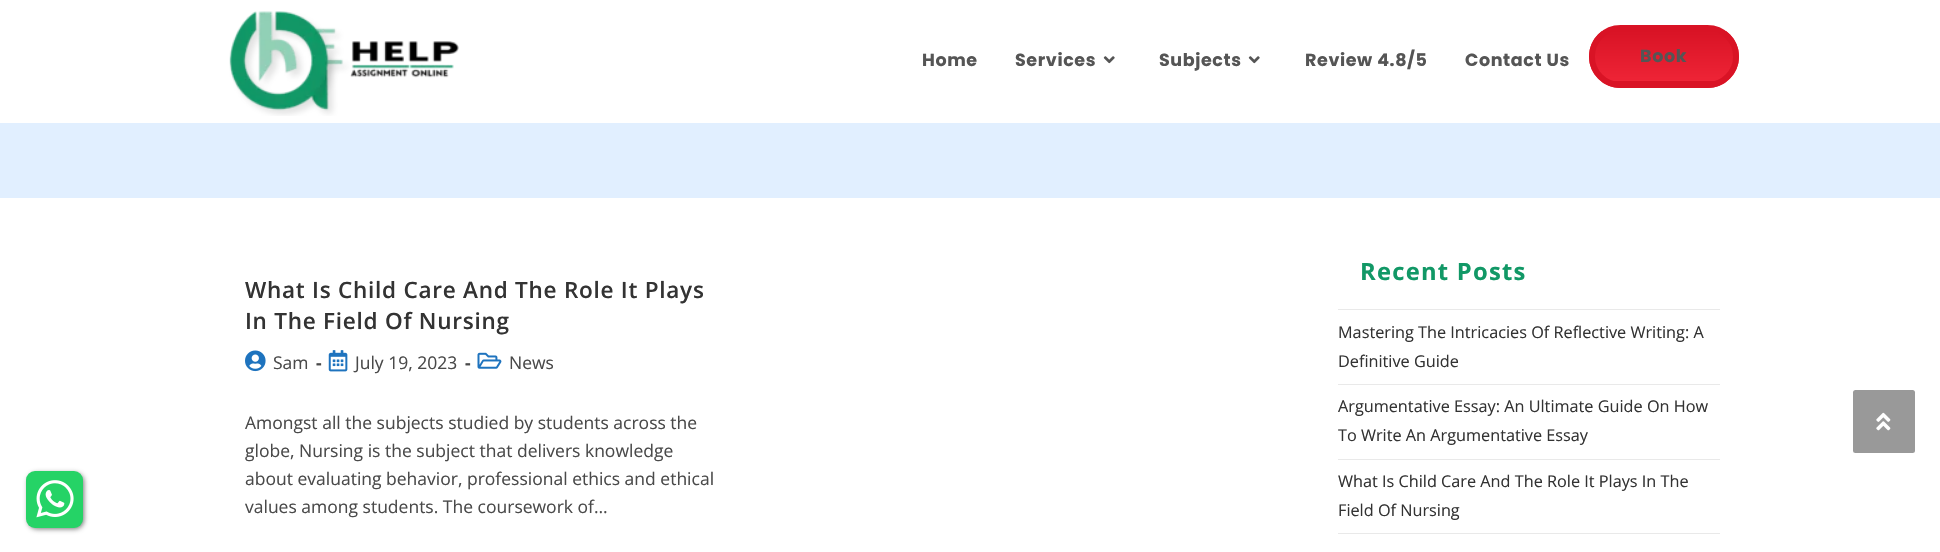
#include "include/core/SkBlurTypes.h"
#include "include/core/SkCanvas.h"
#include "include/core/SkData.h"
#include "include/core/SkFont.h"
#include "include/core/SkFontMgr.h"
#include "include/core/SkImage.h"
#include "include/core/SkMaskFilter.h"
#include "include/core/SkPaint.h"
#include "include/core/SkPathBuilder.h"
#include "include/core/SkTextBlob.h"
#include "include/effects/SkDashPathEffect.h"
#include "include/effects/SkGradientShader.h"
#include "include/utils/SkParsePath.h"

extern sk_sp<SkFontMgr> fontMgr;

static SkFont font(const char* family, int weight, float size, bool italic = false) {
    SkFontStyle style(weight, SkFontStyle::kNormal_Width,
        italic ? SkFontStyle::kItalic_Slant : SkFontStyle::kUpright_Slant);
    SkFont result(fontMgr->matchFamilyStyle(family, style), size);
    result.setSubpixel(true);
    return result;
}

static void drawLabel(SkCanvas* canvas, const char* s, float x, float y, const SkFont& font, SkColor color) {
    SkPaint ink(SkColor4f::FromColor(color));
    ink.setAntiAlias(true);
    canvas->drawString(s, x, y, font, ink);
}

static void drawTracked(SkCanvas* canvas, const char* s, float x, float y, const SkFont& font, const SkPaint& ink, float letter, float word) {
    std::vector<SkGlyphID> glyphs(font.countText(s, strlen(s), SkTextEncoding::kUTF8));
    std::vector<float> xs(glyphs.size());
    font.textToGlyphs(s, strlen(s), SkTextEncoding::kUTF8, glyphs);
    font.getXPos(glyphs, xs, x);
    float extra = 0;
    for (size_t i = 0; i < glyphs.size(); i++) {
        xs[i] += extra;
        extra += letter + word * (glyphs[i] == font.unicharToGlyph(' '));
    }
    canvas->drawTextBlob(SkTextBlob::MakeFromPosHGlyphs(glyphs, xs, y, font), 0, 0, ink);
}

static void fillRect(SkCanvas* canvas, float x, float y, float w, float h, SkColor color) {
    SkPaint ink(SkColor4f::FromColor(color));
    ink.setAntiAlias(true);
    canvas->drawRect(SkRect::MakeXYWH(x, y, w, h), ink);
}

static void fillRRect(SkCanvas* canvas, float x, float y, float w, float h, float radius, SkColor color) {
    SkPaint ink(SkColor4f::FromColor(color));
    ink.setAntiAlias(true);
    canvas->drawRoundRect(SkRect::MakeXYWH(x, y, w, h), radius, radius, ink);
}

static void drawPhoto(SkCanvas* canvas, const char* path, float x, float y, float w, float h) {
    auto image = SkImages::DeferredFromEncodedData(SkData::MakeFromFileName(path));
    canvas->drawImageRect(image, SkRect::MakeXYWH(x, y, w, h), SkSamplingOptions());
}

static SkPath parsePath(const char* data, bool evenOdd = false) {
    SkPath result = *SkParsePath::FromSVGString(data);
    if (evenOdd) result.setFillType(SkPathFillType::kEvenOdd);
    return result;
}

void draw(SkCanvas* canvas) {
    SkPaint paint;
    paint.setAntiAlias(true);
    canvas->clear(0xFFFFFFFF);
    drawPhoto(canvas, "assets/img1.png", 229, 11, 230, 105);
    SkFont font1 = font("Poppins", 700, 17.5f);
    paint.setColor(0xFF555555);
    drawTracked(canvas, "Home", 922, 66, font1, paint, 0.6f, 0);
    drawTracked(canvas, "Services", 1015, 66, font1, paint, 0.6f, 0);
    drawPhoto(canvas, "assets/img2.png", 1103, 56, 12, 8);
    drawTracked(canvas, "Subjects", 1159, 66, font1, paint, 0.6f, 0);
    drawPhoto(canvas, "assets/img2.png", 1248, 56, 12, 8);
    drawTracked(canvas, "Review 4.8/5", 1305, 66, font1, paint, 0.6f, 0);
    drawTracked(canvas, "Contact Us", 1465, 66, font1, paint, 0.6f, 0);
    canvas->save();
    canvas->clipPath(parsePath("M1620.5 25H1707.5C1725 25 1739 39 1739 56.5C1739 74 1725 88 1707.5 88H1620.5C1603 88 1589 74 1589 56.5C1589 39 1603 25 1620.5 25Z"), true);
    {
        const SkColor colors[] = {0xFFD91325, 0xFFEE2436};
        const float stops[] = {0, 1};
        const SkPoint ends[] = {{1664, 31}, {1664, 81}};
        paint.setShader(SkGradientShader::MakeLinear(ends, colors, stops, 2, SkTileMode::kClamp));
        paint.setAlpha(255);
    }
    canvas->drawRect(SkRect::MakeXYWH(1589, 31, 150, 50), paint);
    {
        const SkColor colors[] = {0xFFD91325, 0xFFEE2436};
        const float stops[] = {0, 1};
        const SkPoint ends[] = {{1664, 81}, {1664, 131}};
        paint.setShader(SkGradientShader::MakeLinear(ends, colors, stops, 2, SkTileMode::kClamp));
        paint.setAlpha(255);
    }
    canvas->drawRect(SkRect::MakeXYWH(1600, 81, 128, 7), paint);
    canvas->restore();
    paint.setStroke(true);
    paint.setStrokeWidth(6);
    paint.setShader(nullptr);
    paint.setColor(0xFFD91325);
    canvas->drawRoundRect(SkRect::MakeXYWH(1592, 28, 144, 57), 28.5f, 28.5f, paint);
    paint.setStroke(false);
    paint.setColor(0xFF555555);
    drawTracked(canvas, "Book", 1640, 62, font1, paint, 0.6f, 0);
    paint.setColor(0xFF777777);
    paint.setMaskFilter(SkMaskFilter::MakeBlur(kNormal_SkBlurStyle, 2.5f));
    canvas->drawRoundRect(SkRect::MakeXYWH(28, 473, 56, 56), 9, 9, paint);
    paint.setMaskFilter(nullptr);
    fillRRect(canvas, 26, 471, 57, 57, 9, 0xFF25D366);
    drawPhoto(canvas, "assets/img3.png", 36, 480, 38, 38);
    fillRect(canvas, 0, 123, 1940, 75, 0xFFE1EFFF);
    SkFont font2 = font("Open Sans", 600, 22.5f);
    paint.setColor(0xFF333333);
    drawTracked(canvas, "What Is Child Care And The Role It Plays", 245, 298, font2, paint, 0.75f, 0);
    drawTracked(canvas, "In The Field Of Nursing", 245, 329, font2, paint, 0.75f, 0);
    drawPhoto(canvas, "assets/img4.png", 245, 350, 21, 22);
    SkFont font3 = font("Open Sans", 400, 17.5f);
    drawLabel(canvas, "Sam", 273, 369, font3, 0xFF4A4A4A);
    SkFont font4 = font("Open Sans", 700, 17.5f);
    drawLabel(canvas, "-", 316, 369, font4, 0xFF4A4A4A);
    drawPhoto(canvas, "assets/img5.png", 328, 350, 20, 22);
    drawLabel(canvas, "July 19, 2023", 355, 369, font3, 0xFF4A4A4A);
    drawLabel(canvas, "-", 465, 369, font4, 0xFF4A4A4A);
    drawPhoto(canvas, "assets/img6.png", 477, 352, 25, 17);
    drawLabel(canvas, "News", 509, 369, font3, 0xFF4A4A4A);
    drawLabel(canvas, "Amongst all the subjects studied by students across the", 245, 429, font3, 0xFF4A4A4A);
    drawLabel(canvas, "globe, Nursing is the subject that delivers knowledge", 245, 457, font3, 0xFF4A4A4A);
    drawLabel(canvas, "about evaluating behavior, professional ethics and ethical", 245, 485, font3, 0xFF4A4A4A);
    drawLabel(canvas, "values among students. The coursework of…", 245, 513, font3, 0xFF4A4A4A);
    SkFont font5 = font("Open Sans", 700, 23.75f);
    paint.setColor(0xFF119866);
    drawTracked(canvas, "Recent Posts", 1360, 280, font5, paint, 1.25f, 0);
    fillRect(canvas, 1338, 309, 382, 1, 0xFFE9E9E9);
    fillRect(canvas, 1338, 384, 382, 1, 0xFFE9E9E9);
    SkFont font6 = font("Open Sans", 400, 16.25f);
    drawLabel(canvas, "Mastering The Intricacies Of Reflective Writing: A", 1338, 338, font6, 0xFF333333);
    drawLabel(canvas, "Definitive Guide", 1338, 367, font6, 0xFF333333);
    fillRect(canvas, 1338, 459, 382, 1, 0xFFE9E9E9);
    drawLabel(canvas, "Argumentative Essay: An Ultimate Guide On How", 1338, 412, font6, 0xFF333333);
    drawLabel(canvas, "To Write An Argumentative Essay", 1338, 441, font6, 0xFF333333);
    fillRect(canvas, 1338, 533, 382, 1, 0xFFE9E9E9);
    drawLabel(canvas, "What Is Child Care And The Role It Plays In The", 1338, 487, font6, 0xFF333333);
    drawLabel(canvas, "Field Of Nursing", 1338, 516, font6, 0xFF333333);
    fillRRect(canvas, 1853, 390, 62, 63, 2.5f, 0xFF999999);
    drawPhoto(canvas, "assets/img7.png", 1876, 412, 15, 19);
}
